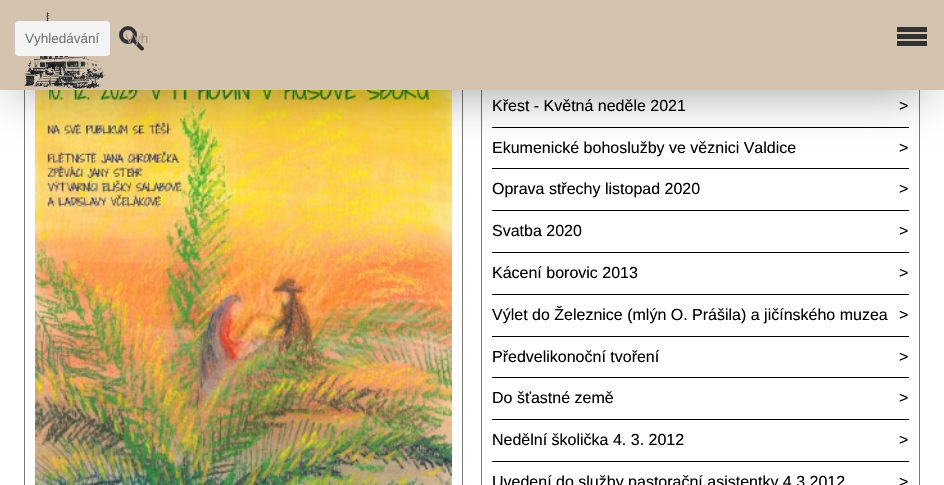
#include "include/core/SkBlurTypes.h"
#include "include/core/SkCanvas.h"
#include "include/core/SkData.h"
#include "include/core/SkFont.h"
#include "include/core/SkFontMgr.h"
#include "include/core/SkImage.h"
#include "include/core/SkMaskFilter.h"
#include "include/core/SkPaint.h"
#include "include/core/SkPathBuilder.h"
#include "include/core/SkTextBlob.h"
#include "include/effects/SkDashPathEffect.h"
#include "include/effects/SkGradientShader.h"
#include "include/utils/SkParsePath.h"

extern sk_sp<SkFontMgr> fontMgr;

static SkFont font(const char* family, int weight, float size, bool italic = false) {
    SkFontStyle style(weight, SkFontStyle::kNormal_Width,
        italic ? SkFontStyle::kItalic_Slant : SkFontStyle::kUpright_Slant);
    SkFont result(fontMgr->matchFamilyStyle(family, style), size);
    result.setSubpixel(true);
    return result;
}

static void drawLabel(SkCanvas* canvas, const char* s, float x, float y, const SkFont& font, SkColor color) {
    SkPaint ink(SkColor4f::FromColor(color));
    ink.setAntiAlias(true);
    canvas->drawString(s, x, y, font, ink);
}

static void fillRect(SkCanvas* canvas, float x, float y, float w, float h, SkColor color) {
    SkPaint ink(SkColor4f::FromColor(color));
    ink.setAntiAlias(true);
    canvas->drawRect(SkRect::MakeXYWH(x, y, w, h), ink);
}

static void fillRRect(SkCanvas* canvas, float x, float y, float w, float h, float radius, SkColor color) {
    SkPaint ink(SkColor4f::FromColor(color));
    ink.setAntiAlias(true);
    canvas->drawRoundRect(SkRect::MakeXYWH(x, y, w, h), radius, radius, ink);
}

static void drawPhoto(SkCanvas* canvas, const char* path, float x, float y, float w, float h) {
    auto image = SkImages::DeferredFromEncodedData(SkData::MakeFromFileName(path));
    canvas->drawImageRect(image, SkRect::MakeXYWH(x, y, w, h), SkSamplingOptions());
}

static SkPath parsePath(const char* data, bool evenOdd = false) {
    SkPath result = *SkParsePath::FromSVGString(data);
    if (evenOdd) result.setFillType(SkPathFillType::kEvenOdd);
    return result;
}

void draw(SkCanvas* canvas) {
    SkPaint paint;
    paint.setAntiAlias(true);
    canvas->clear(0xFFFFFFFF);
    fillRect(canvas, 462, 90, 1, 395, 0xFF777777);
    fillRect(canvas, 24, 90, 1, 395, 0xFF777777);
    drawPhoto(canvas, "assets/img2.png", 35, 90, 417, 395);
    fillRect(canvas, 919, 90, 1, 395, 0xFF777777);
    fillRect(canvas, 481, 90, 1, 395, 0xFF777777);
    fillRect(canvas, 492, 127, 417, 1, 0xFF000000);
    fillRect(canvas, 492, 168, 417, 1, 0xFF000000);
    paint.setColor(0x73000000);
    paint.setMaskFilter(SkMaskFilter::MakeBlur(kNormal_SkBlurStyle, 27));
    canvas->drawRect(SkRect::MakeXYWH(18, 33, 908, 54), paint);
    paint.setMaskFilter(nullptr);
    fillRect(canvas, 0, 0, 944, 90, 0xFFD4C3AE);
    drawPhoto(canvas, "assets/img1.png", 24, 11, 82, 79);
    fillRect(canvas, 897, 27, 30, 5, 0xFF333333);
    fillRect(canvas, 897, 34, 30, 5, 0xFF333333);
    fillRect(canvas, 897, 41, 30, 5, 0xFF333333);
    fillRRect(canvas, 15, 21, 95, 35, 4, 0xFFF4F4F4);
    SkFont font1 = font("Liberation Sans", 400, 13.5f);
    drawLabel(canvas, "Vyhledávání", 25, 43, font1, 0xFF757575);
    paint.setStroke(true);
    paint.setStrokeWidth(4);
    paint.setColor(0xFF333333);
    canvas->drawCircle(128, 35, 7, paint);
    paint.setStroke(false);
    canvas->drawPath(parsePath("M132 41.5L135 38.5L144 48C144.5 50 142 51.5 140.5 50Z"), paint);
    drawLabel(canvas, "Vyh", 125, 43, font1, 0xFFA09486);
    SkFont font2 = font("Liberation Sans", 400, 16);
    drawLabel(canvas, "Křest - Květná neděle 2021", 492, 111, font2, 0xFF000000);
    drawLabel(canvas, ">", 899, 111, font2, 0xFF000000);
    drawLabel(canvas, "Ekumenické bohoslužby ve věznici Valdice", 492, 153, font2, 0xFF000000);
    drawLabel(canvas, ">", 899, 153, font2, 0xFF000000);
    fillRect(canvas, 492, 210, 417, 1, 0xFF000000);
    drawLabel(canvas, "Oprava střechy listopad 2020", 492, 194, font2, 0xFF000000);
    drawLabel(canvas, ">", 899, 194, font2, 0xFF000000);
    fillRect(canvas, 492, 252, 417, 1, 0xFF000000);
    drawLabel(canvas, "Svatba 2020", 492, 236, font2, 0xFF000000);
    drawLabel(canvas, ">", 899, 236, font2, 0xFF000000);
    fillRect(canvas, 492, 294, 417, 1, 0xFF000000);
    drawLabel(canvas, "Kácení borovic 2013", 492, 278, font2, 0xFF000000);
    drawLabel(canvas, ">", 899, 278, font2, 0xFF000000);
    fillRect(canvas, 492, 336, 417, 1, 0xFF000000);
    drawLabel(canvas, "Výlet do Železnice (mlýn O. Prášila) a jičínského muzea", 492, 320, font2, 0xFF000000);
    drawLabel(canvas, ">", 899, 320, font2, 0xFF000000);
    fillRect(canvas, 492, 377, 417, 1, 0xFF000000);
    drawLabel(canvas, "Předvelikonoční tvoření", 492, 362, font2, 0xFF000000);
    drawLabel(canvas, ">", 899, 362, font2, 0xFF000000);
    fillRect(canvas, 492, 419, 417, 1, 0xFF000000);
    drawLabel(canvas, "Do šťastné země", 492, 403, font2, 0xFF000000);
    drawLabel(canvas, ">", 899, 403, font2, 0xFF000000);
    fillRect(canvas, 492, 461, 417, 1, 0xFF000000);
    drawLabel(canvas, "Nedělní školička 4. 3. 2012", 492, 445, font2, 0xFF000000);
    drawLabel(canvas, ">", 899, 445, font2, 0xFF000000);
    drawLabel(canvas, "Uvedení do služby pastorační asistentky 4.3.2012", 492, 487, font2, 0xFF000000);
    drawLabel(canvas, ">", 899, 487, font2, 0xFF000000);
}
